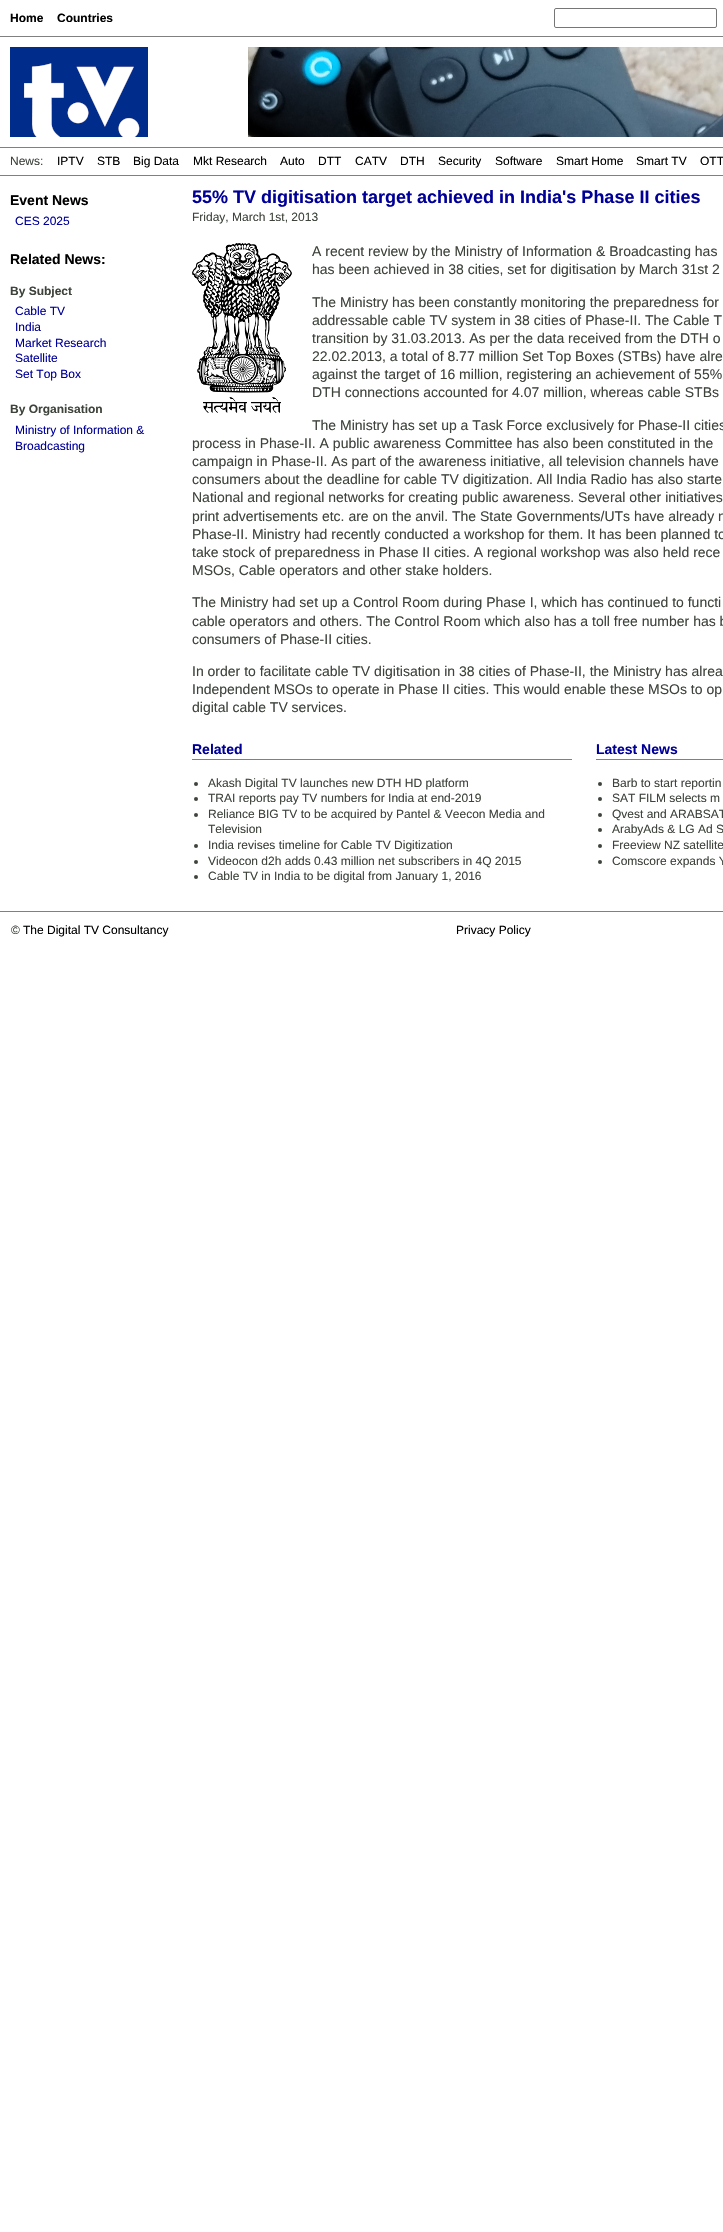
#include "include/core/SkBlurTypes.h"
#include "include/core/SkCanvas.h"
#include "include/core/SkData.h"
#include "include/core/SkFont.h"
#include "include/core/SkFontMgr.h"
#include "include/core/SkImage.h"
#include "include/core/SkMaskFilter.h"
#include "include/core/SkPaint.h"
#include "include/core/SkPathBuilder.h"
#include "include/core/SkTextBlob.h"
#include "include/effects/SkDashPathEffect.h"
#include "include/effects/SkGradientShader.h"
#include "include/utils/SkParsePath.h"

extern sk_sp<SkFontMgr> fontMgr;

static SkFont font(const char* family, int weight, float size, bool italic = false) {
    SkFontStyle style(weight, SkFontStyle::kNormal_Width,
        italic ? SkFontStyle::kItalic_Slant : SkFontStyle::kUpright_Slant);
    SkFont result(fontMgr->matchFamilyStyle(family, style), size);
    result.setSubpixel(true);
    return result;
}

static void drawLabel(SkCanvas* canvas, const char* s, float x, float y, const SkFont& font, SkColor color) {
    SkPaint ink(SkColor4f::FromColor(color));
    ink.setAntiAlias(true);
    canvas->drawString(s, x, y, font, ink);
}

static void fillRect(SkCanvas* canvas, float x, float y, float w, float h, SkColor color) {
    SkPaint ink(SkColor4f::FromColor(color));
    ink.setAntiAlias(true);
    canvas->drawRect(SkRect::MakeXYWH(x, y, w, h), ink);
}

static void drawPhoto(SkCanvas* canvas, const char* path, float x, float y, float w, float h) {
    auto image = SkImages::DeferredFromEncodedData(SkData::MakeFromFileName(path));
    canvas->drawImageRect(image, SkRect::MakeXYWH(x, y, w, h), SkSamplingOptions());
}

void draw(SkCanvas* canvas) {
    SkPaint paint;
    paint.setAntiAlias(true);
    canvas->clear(0xFFFFFFFF);
    fillRect(canvas, 0, 36, 723, 1, 0xFF808080);
    SkFont font1 = font("Liberation Sans", 700, 12);
    drawLabel(canvas, "Home", 10, 22, font1, 0xFF000000);
    drawLabel(canvas, "Countries", 57, 22, font1, 0xFF000000);
    paint.setStroke(true);
    paint.setStrokeWidth(1);
    paint.setColor(0xFF767676);
    canvas->drawRoundRect(SkRect::MakeXYWH(554.5f, 8.5f, 162, 19), 1.5f, 1.5f, paint);
    drawPhoto(canvas, "assets/img1.png", 10, 47, 138, 90);
    drawPhoto(canvas, "assets/img2.png", 248, 47, 475, 90);
    fillRect(canvas, 0, 147, 723, 1, 0xFF808080);
    fillRect(canvas, 0, 175, 723, 1, 0xFF808080);
    SkFont font2 = font("Liberation Sans", 400, 12);
    drawLabel(canvas, "News:", 10, 165, font2, 0xFF3E443C);
    drawLabel(canvas, "IPTV", 57, 165, font2, 0xFF000000);
    drawLabel(canvas, "STB", 97, 165, font2, 0xFF000000);
    drawLabel(canvas, "Big Data", 133, 165, font2, 0xFF000000);
    drawLabel(canvas, "Mkt Research", 193, 165, font2, 0xFF000000);
    drawLabel(canvas, "Auto", 280, 165, font2, 0xFF000000);
    drawLabel(canvas, "DTT", 318, 165, font2, 0xFF000000);
    drawLabel(canvas, "CATV", 355, 165, font2, 0xFF000000);
    drawLabel(canvas, "DTH", 400, 165, font2, 0xFF000000);
    drawLabel(canvas, "Security", 438, 165, font2, 0xFF000000);
    drawLabel(canvas, "Software", 495, 165, font2, 0xFF000000);
    drawLabel(canvas, "Smart Home", 556, 165, font2, 0xFF000000);
    drawLabel(canvas, "Smart TV", 636, 165, font2, 0xFF000000);
    drawLabel(canvas, "OTT", 700, 165, font2, 0xFF000000);
    fillRect(canvas, 0, 911, 723, 1, 0xFF808080);
    SkFont font3 = font("Liberation Sans", 700, 14);
    drawLabel(canvas, "Event News", 10, 205, font3, 0xFF000000);
    drawLabel(canvas, "CES 2025", 15, 225, font2, 0xFF000099);
    drawLabel(canvas, "Related News:", 10, 264, font3, 0xFF000000);
    drawLabel(canvas, "By Subject", 10, 295, font1, 0xFF3E443C);
    drawLabel(canvas, "Cable TV", 15, 315, font2, 0xFF000099);
    drawLabel(canvas, "India", 15, 331, font2, 0xFF000099);
    drawLabel(canvas, "Market Research", 15, 347, font2, 0xFF000099);
    drawLabel(canvas, "Satellite", 15, 362, font2, 0xFF000099);
    drawLabel(canvas, "Set Top Box", 15, 378, font2, 0xFF000099);
    drawLabel(canvas, "By Organisation", 10, 413, font1, 0xFF3E443C);
    drawLabel(canvas, "Ministry of Information &", 15, 434, font2, 0xFF000099);
    drawLabel(canvas, "Broadcasting", 15, 450, font2, 0xFF000099);
    SkFont font4 = font("Liberation Sans", 700, 18);
    drawLabel(canvas, "55% TV digitisation target achieved in India's Phase II cities", 192, 203, font4, 0xFF000099);
    drawLabel(canvas, "Friday, March 1st, 2013", 192, 221, font2, 0xFF3E443C);
    drawPhoto(canvas, "assets/img3.png", 192, 243, 100, 170);
    SkFont font5 = font("Liberation Sans", 400, 14);
    drawLabel(canvas, "A recent review by the Ministry of Information & Broadcasting has", 312, 256, font5, 0xFF3E443C);
    drawLabel(canvas, "has been achieved in 38 cities, set for digitisation by March 31st 2", 312, 274, font5, 0xFF3E443C);
    drawLabel(canvas, "The Ministry has been constantly monitoring the preparedness for", 312, 307, font5, 0xFF3E443C);
    drawLabel(canvas, "addressable cable TV system in 38 cities of Phase-II. The Cable T", 312, 325, font5, 0xFF3E443C);
    drawLabel(canvas, "transition by 31.03.2013. As per the data received from the DTH o", 312, 343, font5, 0xFF3E443C);
    drawLabel(canvas, "22.02.2013, a total of 8.77 million Set Top Boxes (STBs) have alre", 312, 361, font5, 0xFF3E443C);
    drawLabel(canvas, "against the target of 16 million, registering an achievement of 55%", 312, 379, font5, 0xFF3E443C);
    drawLabel(canvas, "DTH connections accounted for 4.07 million, whereas cable STBs", 312, 397, font5, 0xFF3E443C);
    drawLabel(canvas, "The Ministry has set up a Task Force exclusively for Phase-II cities", 312, 430, font5, 0xFF3E443C);
    drawLabel(canvas, "process in Phase-II. A public awareness Committee has also been constituted in the", 192, 448, font5, 0xFF3E443C);
    drawLabel(canvas, "campaign in Phase-II. As part of the awareness initiative, all television channels have", 192, 466, font5, 0xFF3E443C);
    drawLabel(canvas, "consumers about the deadline for cable TV digitization. All India Radio has also starte", 192, 484, font5, 0xFF3E443C);
    drawLabel(canvas, "National and regional networks for creating public awareness. Several other initiatives", 192, 502, font5, 0xFF3E443C);
    drawLabel(canvas, "print advertisements etc. are on the anvil. The State Governments/UTs have already n", 192, 521, font5, 0xFF3E443C);
    drawLabel(canvas, "Phase-II. Ministry had recently conducted a workshop for them. It has been planned to", 192, 539, font5, 0xFF3E443C);
    drawLabel(canvas, "take stock of preparedness in Phase II cities. A regional workshop was also held rece", 192, 557, font5, 0xFF3E443C);
    drawLabel(canvas, "MSOs, Cable operators and other stake holders.", 192, 575, font5, 0xFF3E443C);
    drawLabel(canvas, "The Ministry had set up a Control Room during Phase I, which has continued to functi", 192, 607, font5, 0xFF3E443C);
    drawLabel(canvas, "cable operators and others. The Control Room which also has a toll free number has b", 192, 626, font5, 0xFF3E443C);
    drawLabel(canvas, "consumers of Phase-II cities.", 192, 644, font5, 0xFF3E443C);
    drawLabel(canvas, "In order to facilitate cable TV digitisation in 38 cities of Phase-II, the Ministry has alrea", 192, 676, font5, 0xFF3E443C);
    drawLabel(canvas, "Independent MSOs to operate in Phase II cities. This would enable these MSOs to op", 192, 694, font5, 0xFF3E443C);
    drawLabel(canvas, "digital cable TV services.", 192, 712, font5, 0xFF3E443C);
    fillRect(canvas, 192, 759, 380, 1, 0xFF808080);
    drawLabel(canvas, "Related", 192, 754, font3, 0xFF000099);
    paint.setStroke(false);
    paint.setColor(0xFF3E443C);
    canvas->drawCircle(196, 784, 2, paint);
    drawLabel(canvas, "Akash Digital TV launches new DTH HD platform", 208, 787, font2, 0xFF3E443C);
    canvas->drawCircle(196, 799, 2, paint);
    drawLabel(canvas, "TRAI reports pay TV numbers for India at end-2019", 208, 802, font2, 0xFF3E443C);
    canvas->drawCircle(196, 815, 2, paint);
    drawLabel(canvas, "Reliance BIG TV to be acquired by Pantel & Veecon Media and", 208, 818, font2, 0xFF3E443C);
    drawLabel(canvas, "Television", 208, 833, font2, 0xFF3E443C);
    canvas->drawCircle(196, 846, 2, paint);
    drawLabel(canvas, "India revises timeline for Cable TV Digitization", 208, 849, font2, 0xFF3E443C);
    canvas->drawCircle(196, 862, 2, paint);
    drawLabel(canvas, "Videocon d2h adds 0.43 million net subscribers in 4Q 2015", 208, 865, font2, 0xFF3E443C);
    canvas->drawCircle(196, 877, 2, paint);
    drawLabel(canvas, "Cable TV in India to be digital from January 1, 2016", 208, 880, font2, 0xFF3E443C);
    fillRect(canvas, 596, 759, 127, 1, 0xFF808080);
    drawLabel(canvas, "Latest News", 596, 754, font3, 0xFF000099);
    canvas->drawCircle(600, 784, 2, paint);
    drawLabel(canvas, "Barb to start reportin", 612, 787, font2, 0xFF3E443C);
    canvas->drawCircle(600, 799, 2, paint);
    drawLabel(canvas, "SAT FILM selects m", 612, 802, font2, 0xFF3E443C);
    canvas->drawCircle(600, 815, 2, paint);
    drawLabel(canvas, "Qvest and ARABSAT", 612, 818, font2, 0xFF3E443C);
    canvas->drawCircle(600, 830, 2, paint);
    drawLabel(canvas, "ArabyAds & LG Ad S", 612, 833, font2, 0xFF3E443C);
    canvas->drawCircle(600, 846, 2, paint);
    drawLabel(canvas, "Freeview NZ satellite", 612, 849, font2, 0xFF3E443C);
    canvas->drawCircle(600, 862, 2, paint);
    drawLabel(canvas, "Comscore expands Y", 612, 865, font2, 0xFF3E443C);
    drawLabel(canvas, "©", 11, 934, font2, 0xFF3E443C);
    drawLabel(canvas, "The Digital TV Consultancy", 23, 934, font2, 0xFF000000);
    drawLabel(canvas, "Privacy Policy", 456, 934, font2, 0xFF000000);
}
